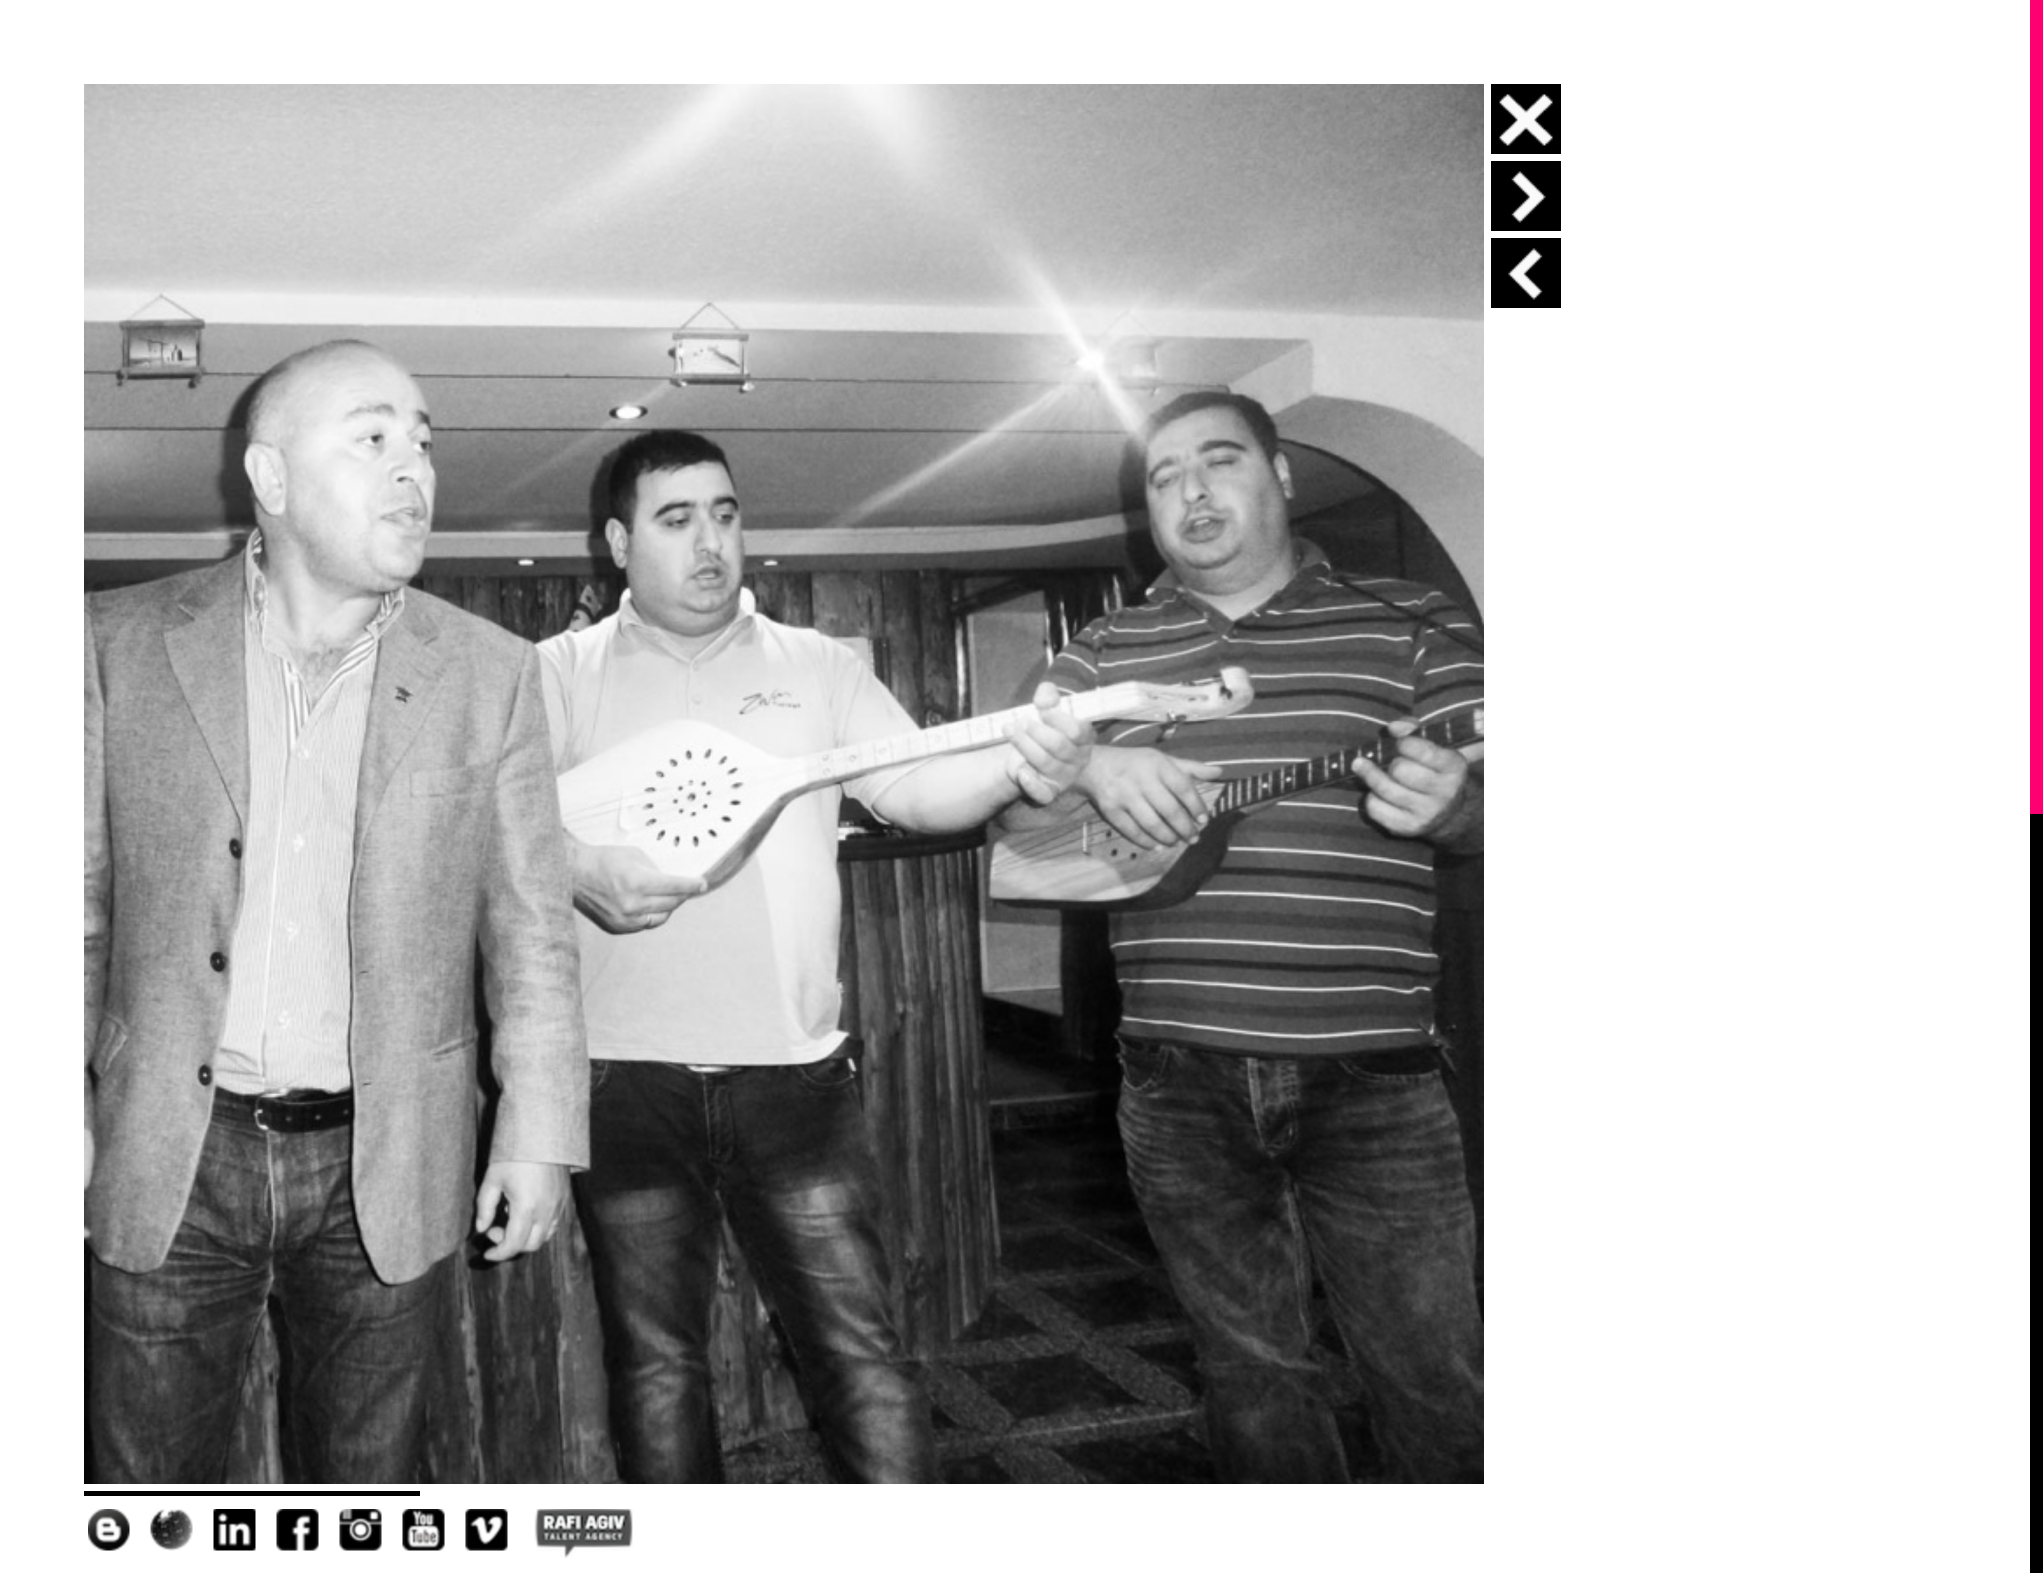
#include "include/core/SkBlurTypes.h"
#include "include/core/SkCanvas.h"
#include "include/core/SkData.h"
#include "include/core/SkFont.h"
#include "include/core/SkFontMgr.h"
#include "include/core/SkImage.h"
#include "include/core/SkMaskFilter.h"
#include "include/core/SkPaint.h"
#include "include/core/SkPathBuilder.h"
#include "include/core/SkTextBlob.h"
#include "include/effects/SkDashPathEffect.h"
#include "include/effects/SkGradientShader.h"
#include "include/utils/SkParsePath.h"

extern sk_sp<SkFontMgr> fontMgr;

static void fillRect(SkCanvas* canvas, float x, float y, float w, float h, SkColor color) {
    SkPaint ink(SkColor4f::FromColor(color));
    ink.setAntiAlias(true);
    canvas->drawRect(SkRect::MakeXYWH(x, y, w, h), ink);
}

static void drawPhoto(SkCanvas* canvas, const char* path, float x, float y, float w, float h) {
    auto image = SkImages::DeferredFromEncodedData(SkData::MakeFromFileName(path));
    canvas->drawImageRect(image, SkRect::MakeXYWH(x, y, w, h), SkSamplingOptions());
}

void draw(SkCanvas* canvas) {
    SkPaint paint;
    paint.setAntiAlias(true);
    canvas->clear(0xFFFFFFFF);
    drawPhoto(canvas, "assets/img1.png", 84, 84, 1400, 1400);
    fillRect(canvas, 84, 1491, 336, 5, 0xFF000000);
    drawPhoto(canvas, "assets/img2.png", 1491, 84, 70, 70);
    drawPhoto(canvas, "assets/img3.png", 1491, 161, 70, 70);
    drawPhoto(canvas, "assets/img4.png", 1491, 238, 70, 70);
    drawPhoto(canvas, "assets/img5.png", 88, 1509, 42, 42);
    drawPhoto(canvas, "assets/img6.png", 150, 1509, 43, 42);
    drawPhoto(canvas, "assets/img7.png", 213, 1509, 43, 42);
    drawPhoto(canvas, "assets/img8.png", 276, 1509, 43, 42);
    drawPhoto(canvas, "assets/img9.png", 339, 1509, 43, 42);
    drawPhoto(canvas, "assets/img10.png", 402, 1509, 43, 42);
    drawPhoto(canvas, "assets/img11.png", 465, 1509, 43, 42);
    drawPhoto(canvas, "assets/img12.png", 534, 1509, 99, 49);
    fillRect(canvas, 2030, 814, 13, 759, 0xFF000000);
    fillRect(canvas, 2030, 0, 13, 814, 0xFFFE0072);
}
